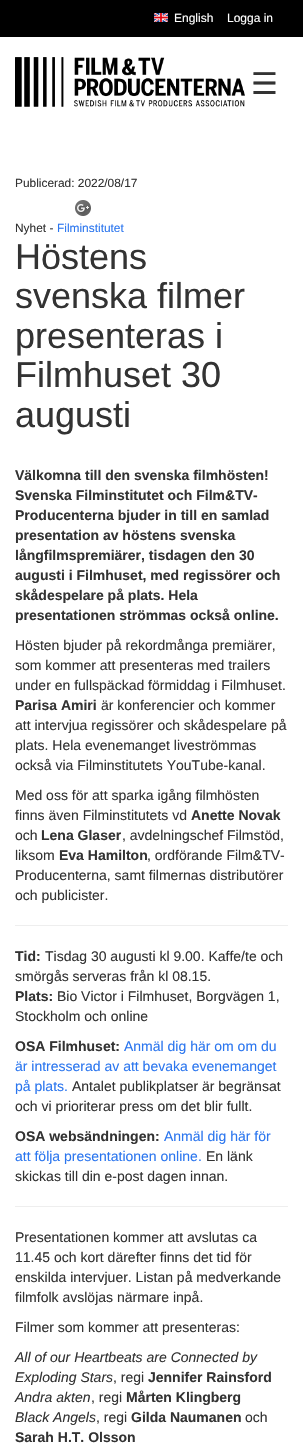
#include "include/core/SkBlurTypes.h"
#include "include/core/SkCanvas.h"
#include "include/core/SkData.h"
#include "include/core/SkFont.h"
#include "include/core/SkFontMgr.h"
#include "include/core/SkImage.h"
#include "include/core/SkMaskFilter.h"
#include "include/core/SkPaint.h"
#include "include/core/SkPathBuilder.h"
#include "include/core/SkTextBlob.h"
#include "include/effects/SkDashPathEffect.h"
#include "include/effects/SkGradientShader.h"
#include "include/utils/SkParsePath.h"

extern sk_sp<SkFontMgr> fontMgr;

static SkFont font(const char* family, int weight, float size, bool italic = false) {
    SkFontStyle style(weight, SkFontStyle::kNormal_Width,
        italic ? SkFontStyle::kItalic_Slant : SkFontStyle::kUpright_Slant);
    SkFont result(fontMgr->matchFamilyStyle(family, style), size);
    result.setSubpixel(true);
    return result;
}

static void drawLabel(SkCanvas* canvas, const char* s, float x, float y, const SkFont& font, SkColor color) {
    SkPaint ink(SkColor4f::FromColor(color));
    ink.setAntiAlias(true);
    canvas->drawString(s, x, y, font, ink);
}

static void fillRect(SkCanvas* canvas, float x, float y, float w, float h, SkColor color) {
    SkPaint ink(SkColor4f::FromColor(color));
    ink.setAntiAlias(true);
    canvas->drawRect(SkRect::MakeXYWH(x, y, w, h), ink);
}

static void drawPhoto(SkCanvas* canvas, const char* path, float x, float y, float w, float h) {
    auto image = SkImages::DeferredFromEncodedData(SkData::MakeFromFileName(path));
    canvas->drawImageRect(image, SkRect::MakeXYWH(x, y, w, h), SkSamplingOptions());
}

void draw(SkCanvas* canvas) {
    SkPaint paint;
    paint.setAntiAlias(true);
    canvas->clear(0xFF000000);
    drawPhoto(canvas, "assets/img1.png", 154, 13, 14, 9);
    SkFont font1 = font("Liberation Sans", 400, 12);
    drawLabel(canvas, "English", 174, 22, font1, 0xFFFFFFFF);
    drawLabel(canvas, "Logga in", 227, 22, font1, 0xFFFFFFFF);
    fillRect(canvas, 0, 37, 303, 1409, 0xFFFFFFFF);
    drawPhoto(canvas, "assets/img2.png", 15, 57, 230, 50);
    SkFont font2 = font("DejaVu Sans", 400, 30);
    drawLabel(canvas, "☰", 251, 94, font2, 0xFF333333);
    SkFont font3 = font("Liberation Sans", 400, 11.9f);
    drawLabel(canvas, "Publicerad: 2022/08/17", 15, 187, font3, 0xFF333333);
    drawPhoto(canvas, "assets/img3.png", 75, 200, 16, 16);
    drawLabel(canvas, "Nyhet -", 15, 232, font3, 0xFF333333);
    drawLabel(canvas, "Filminstitutet", 57, 232, font3, 0xFF2B76EF);
    SkFont font4 = font("Liberation Sans", 400, 36);
    drawLabel(canvas, "Höstens", 15, 269, font4, 0xFF333333);
    drawLabel(canvas, "svenska filmer", 15, 308, font4, 0xFF333333);
    drawLabel(canvas, "presenteras i", 15, 348, font4, 0xFF333333);
    drawLabel(canvas, "Filmhuset 30", 15, 387, font4, 0xFF333333);
    drawLabel(canvas, "augusti", 15, 427, font4, 0xFF333333);
    SkFont font5 = font("Liberation Sans", 700, 14);
    drawLabel(canvas, "Välkomna till den svenska filmhösten!", 15, 480, font5, 0xFF333333);
    drawLabel(canvas, "Svenska Filminstitutet och Film&TV-", 15, 500, font5, 0xFF333333);
    drawLabel(canvas, "Producenterna bjuder in till en samlad", 15, 520, font5, 0xFF333333);
    drawLabel(canvas, "presentation av höstens svenska", 15, 540, font5, 0xFF333333);
    drawLabel(canvas, "långfilmspremiärer, tisdagen den 30", 15, 560, font5, 0xFF333333);
    drawLabel(canvas, "augusti i Filmhuset, med regissörer och", 15, 580, font5, 0xFF333333);
    drawLabel(canvas, "skådespelare på plats. Hela", 15, 600, font5, 0xFF333333);
    drawLabel(canvas, "presentationen strömmas också online.", 15, 620, font5, 0xFF333333);
    SkFont font6 = font("Liberation Sans", 400, 14);
    drawLabel(canvas, "Hösten bjuder på rekordmånga premiärer,", 15, 650, font6, 0xFF333333);
    drawLabel(canvas, "som kommer att presenteras med trailers", 15, 670, font6, 0xFF333333);
    drawLabel(canvas, "under en fullspäckad förmiddag i Filmhuset.", 15, 690, font6, 0xFF333333);
    drawLabel(canvas, "Parisa Amiri", 15, 710, font5, 0xFF333333);
    drawLabel(canvas, "är konferencier och kommer", 101, 710, font6, 0xFF333333);
    drawLabel(canvas, "att intervjua regissörer och skådespelare på", 15, 730, font6, 0xFF333333);
    drawLabel(canvas, "plats. Hela evenemanget liveströmmas", 15, 750, font6, 0xFF333333);
    drawLabel(canvas, "också via Filminstitutets YouTube-kanal.", 15, 770, font6, 0xFF333333);
    drawLabel(canvas, "Med oss för att sparka igång filmhösten", 15, 800, font6, 0xFF333333);
    drawLabel(canvas, "finns även Filminstitutets vd", 15, 820, font6, 0xFF333333);
    drawLabel(canvas, "Anette Novak", 191, 820, font5, 0xFF333333);
    drawLabel(canvas, "och", 15, 840, font6, 0xFF333333);
    drawLabel(canvas, "Lena Glaser", 41, 840, font5, 0xFF333333);
    drawLabel(canvas, ", avdelningschef Filmstöd,", 122, 840, font6, 0xFF333333);
    drawLabel(canvas, "liksom", 15, 860, font6, 0xFF333333);
    drawLabel(canvas, "Eva Hamilton", 59, 860, font5, 0xFF333333);
    drawLabel(canvas, ", ordförande Film&TV-", 147, 860, font6, 0xFF333333);
    drawLabel(canvas, "Producenterna, samt filmernas distributörer", 15, 880, font6, 0xFF333333);
    drawLabel(canvas, "och publicister.", 15, 900, font6, 0xFF333333);
    fillRect(canvas, 15, 925, 273, 1, 0xFFEEEEEE);
    drawLabel(canvas, "Tid:", 15, 961, font5, 0xFF333333);
    drawLabel(canvas, "Tisdag 30 augusti kl 9.00. Kaffe/te och", 45, 961, font6, 0xFF333333);
    drawLabel(canvas, "smörgås serveras från kl 08.15.", 15, 981, font6, 0xFF333333);
    drawLabel(canvas, "Plats:", 15, 1001, font5, 0xFF333333);
    drawLabel(canvas, "Bio Victor i Filmhuset, Borgvägen 1,", 57, 1001, font6, 0xFF333333);
    drawLabel(canvas, "Stockholm och online", 15, 1021, font6, 0xFF333333);
    drawLabel(canvas, "OSA Filmhuset:", 15, 1051, font5, 0xFF333333);
    drawLabel(canvas, "Anmäl dig här om om du", 124, 1051, font6, 0xFF2B76EF);
    drawLabel(canvas, "är intresserad av att bevaka evenemanget", 15, 1071, font6, 0xFF2B76EF);
    drawLabel(canvas, "på plats.", 15, 1091, font6, 0xFF2B76EF);
    drawLabel(canvas, "Antalet publikplatser är begränsat", 72, 1091, font6, 0xFF333333);
    drawLabel(canvas, "och vi prioriterar press om det blir fullt.", 15, 1111, font6, 0xFF333333);
    drawLabel(canvas, "OSA websändningen:", 15, 1141, font5, 0xFF333333);
    drawLabel(canvas, "Anmäl dig här för", 164, 1141, font6, 0xFF2B76EF);
    drawLabel(canvas, "att följa presentationen online.", 15, 1161, font6, 0xFF2B76EF);
    drawLabel(canvas, "En länk", 206, 1161, font6, 0xFF333333);
    drawLabel(canvas, "skickas till din e-post dagen innan.", 15, 1181, font6, 0xFF333333);
    fillRect(canvas, 15, 1206, 273, 1, 0xFFEEEEEE);
    drawLabel(canvas, "Presentationen kommer att avslutas ca", 15, 1242, font6, 0xFF333333);
    drawLabel(canvas, "11.45 och kort därefter finns det tid för", 15, 1262, font6, 0xFF333333);
    drawLabel(canvas, "enskilda intervjuer. Listan på medverkande", 15, 1282, font6, 0xFF333333);
    drawLabel(canvas, "filmfolk avslöjas närmare inpå.", 15, 1302, font6, 0xFF333333);
    drawLabel(canvas, "Filmer som kommer att presenteras:", 15, 1332, font6, 0xFF333333);
    SkFont font7 = font("Liberation Sans", 400, 14, true);
    drawLabel(canvas, "All of our Heartbeats are Connected by", 15, 1362, font7, 0xFF333333);
    drawLabel(canvas, "Exploding Stars", 15, 1382, font7, 0xFF333333);
    drawLabel(canvas, ", regi", 113, 1382, font6, 0xFF333333);
    drawLabel(canvas, "Jennifer Rainsford", 148, 1382, font5, 0xFF333333);
    drawLabel(canvas, "Andra akten", 15, 1402, font7, 0xFF333333);
    drawLabel(canvas, ", regi", 91, 1402, font6, 0xFF333333);
    drawLabel(canvas, "Mårten Klingberg", 126, 1402, font5, 0xFF333333);
    drawLabel(canvas, "Black Angels", 15, 1422, font7, 0xFF333333);
    drawLabel(canvas, ", regi", 96, 1422, font6, 0xFF333333);
    drawLabel(canvas, "Gilda Naumanen", 131, 1422, font5, 0xFF333333);
    drawLabel(canvas, "och", 245, 1422, font6, 0xFF333333);
    drawLabel(canvas, "Sarah H.T. Olsson", 15, 1442, font5, 0xFF333333);
}
